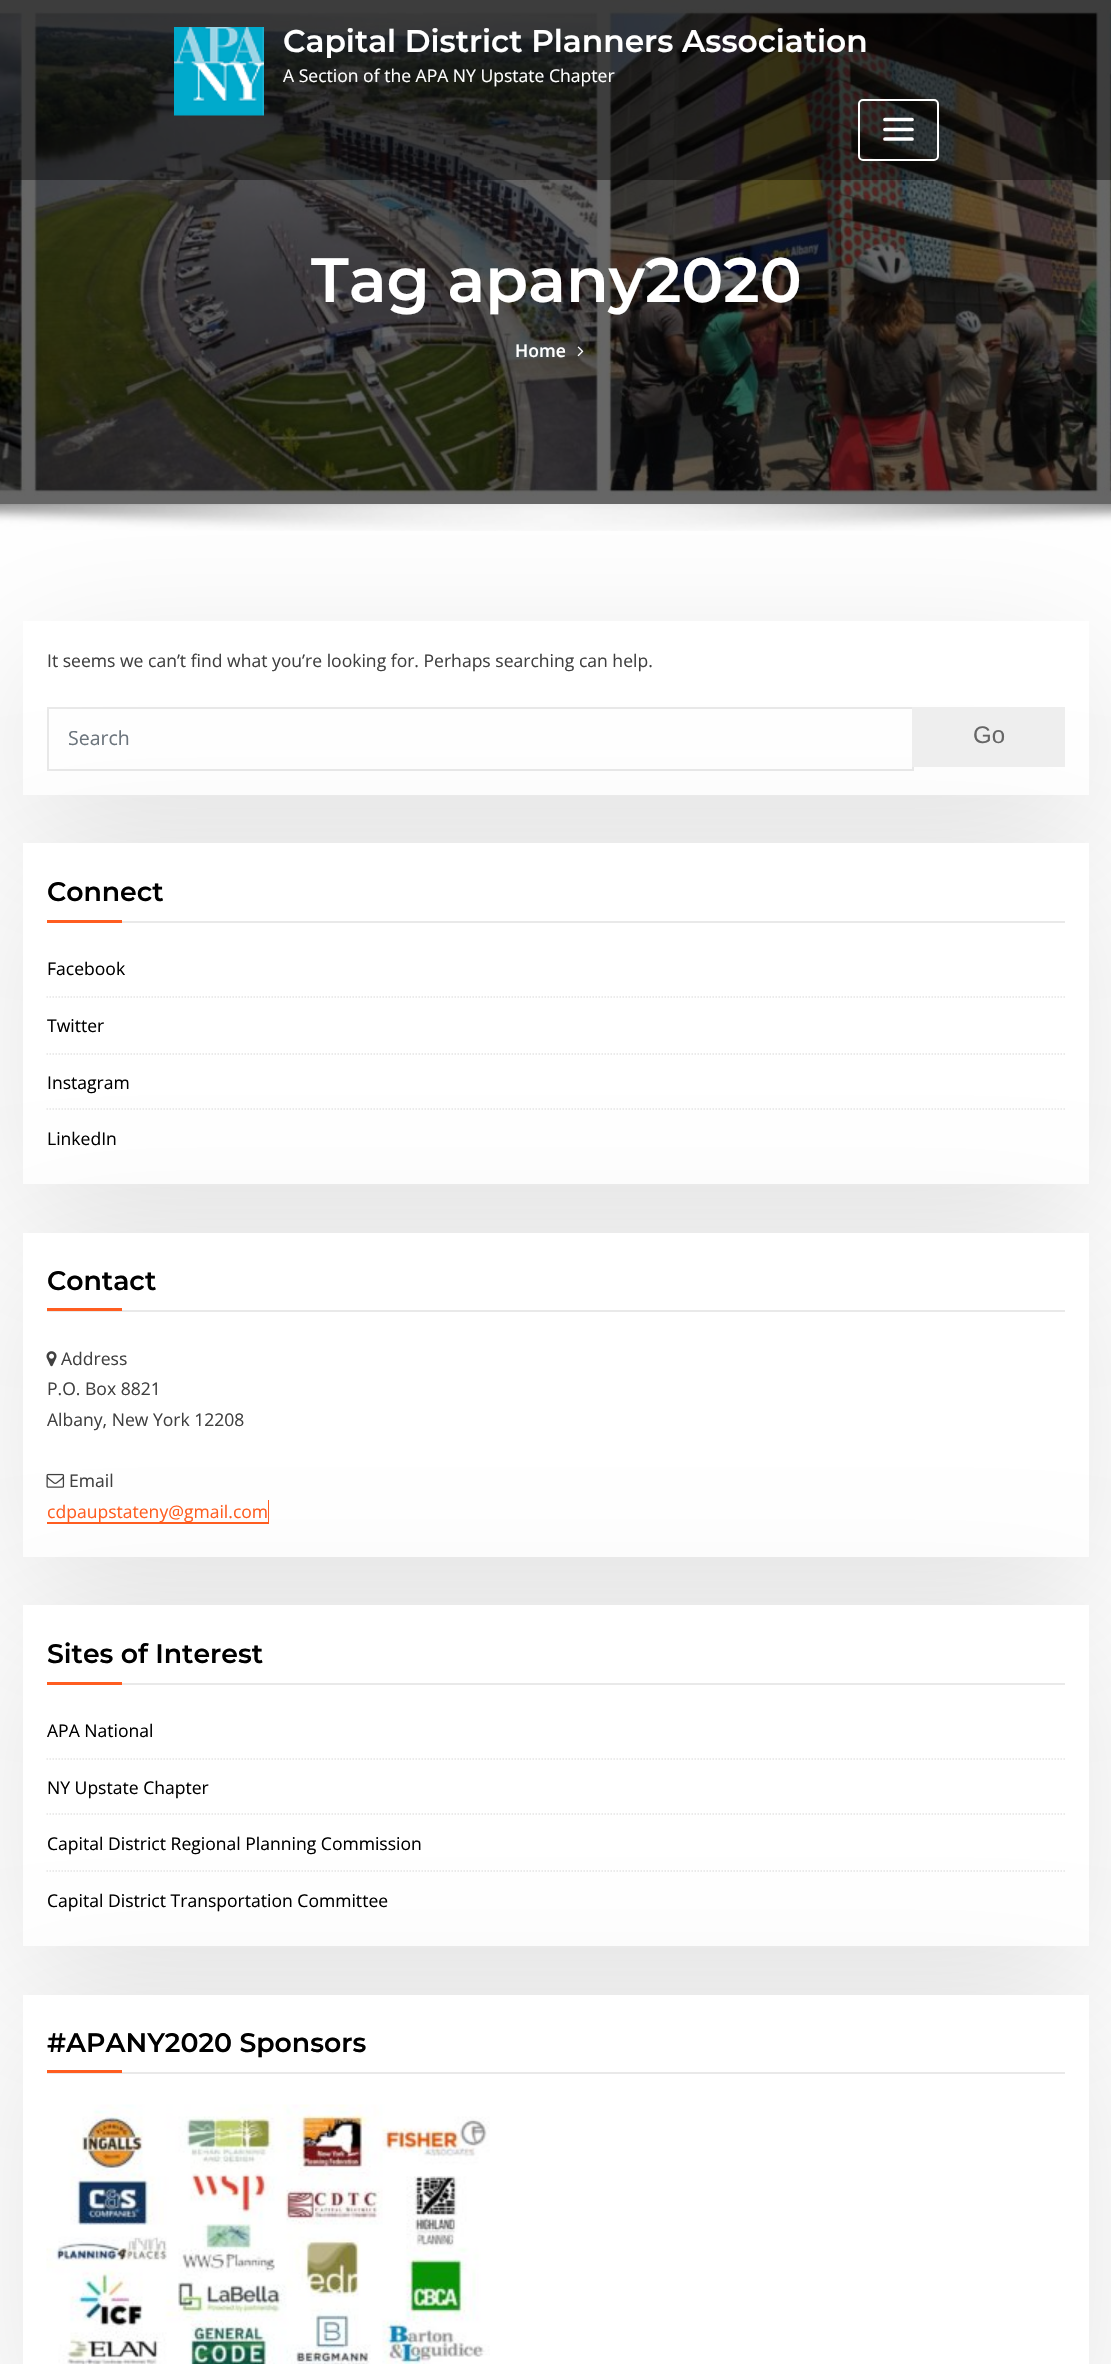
#include "include/core/SkBlurTypes.h"
#include "include/core/SkCanvas.h"
#include "include/core/SkData.h"
#include "include/core/SkFont.h"
#include "include/core/SkFontMgr.h"
#include "include/core/SkImage.h"
#include "include/core/SkMaskFilter.h"
#include "include/core/SkPaint.h"
#include "include/core/SkPathBuilder.h"
#include "include/core/SkTextBlob.h"
#include "include/effects/SkDashPathEffect.h"
#include "include/effects/SkGradientShader.h"
#include "include/utils/SkParsePath.h"

extern sk_sp<SkFontMgr> fontMgr;

static SkFont font(const char* family, int weight, float size, bool italic = false) {
    SkFontStyle style(weight, SkFontStyle::kNormal_Width,
        italic ? SkFontStyle::kItalic_Slant : SkFontStyle::kUpright_Slant);
    SkFont result(fontMgr->matchFamilyStyle(family, style), size);
    result.setSubpixel(true);
    return result;
}

static void drawLabel(SkCanvas* canvas, const char* s, float x, float y, const SkFont& font, SkColor color) {
    SkPaint ink(SkColor4f::FromColor(color));
    ink.setAntiAlias(true);
    canvas->drawString(s, x, y, font, ink);
}

static void fillRect(SkCanvas* canvas, float x, float y, float w, float h, SkColor color) {
    SkPaint ink(SkColor4f::FromColor(color));
    ink.setAntiAlias(true);
    canvas->drawRect(SkRect::MakeXYWH(x, y, w, h), ink);
}

static void drawPhoto(SkCanvas* canvas, const char* path, float x, float y, float w, float h) {
    auto image = SkImages::DeferredFromEncodedData(SkData::MakeFromFileName(path));
    canvas->drawImageRect(image, SkRect::MakeXYWH(x, y, w, h), SkSamplingOptions());
}

static SkPath parsePath(const char* data, bool evenOdd = false) {
    SkPath result = *SkParsePath::FromSVGString(data);
    if (evenOdd) result.setFillType(SkPathFillType::kEvenOdd);
    return result;
}

void draw(SkCanvas* canvas) {
    SkPaint paint;
    paint.setAntiAlias(true);
    canvas->clear(0xFFFFFFFF);
    drawPhoto(canvas, "assets/img2.png", 0, 0, 1111, 504);
    fillRect(canvas, 0, 0, 1111, 180, 0x66000000);
    drawPhoto(canvas, "assets/img1.png", 174, 27, 90, 89);
    SkFont font1 = font("Montserrat", 600, 31.25f);
    drawLabel(canvas, "Capital District Planners Association", 283, 52, font1, 0xFFFFFFFF);
    SkFont font2 = font("Open Sans", 400, 17.55f);
    drawLabel(canvas, "A Section of the APA NY Upstate Chapter", 283, 82, font2, 0xFFFFFFFF);
    paint.setStroke(true);
    paint.setStrokeWidth(2);
    paint.setColor(0xFFFFFFFF);
    canvas->drawRoundRect(SkRect::MakeXYWH(859, 100, 79, 60), 4, 4, paint);
    paint.setStrokeWidth(3.7f);
    paint.setStrokeCap(SkPaint::kRound_Cap);
    canvas->drawPath(parsePath("M885 119.5H912M885 129.5H912M885 139H912"), paint);
    SkFont font3 = font("Montserrat", 600, 62.5f);
    drawLabel(canvas, "Tag apany2020", 311, 302, font3, 0xFFFFFFFF);
    SkFont font4 = font("Open Sans", 600, 17.55f);
    drawLabel(canvas, "Home", 515, 357, font4, 0xFFFFFFFF);
    drawPhoto(canvas, "assets/img3.png", 577, 346, 7, 11);
    canvas->save();
    canvas->clipPath(parsePath("M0 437H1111V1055H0ZM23 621H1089V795H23Z", true), true);
    paint.setStroke(false);
    paint.setColor(0x1A000000);
    paint.setMaskFilter(SkMaskFilter::MakeBlur(kNormal_SkBlurStyle, 73.5f));
    canvas->drawRect(SkRect::MakeXYWH(23, 659, 1066, 174), paint);
    paint.setMaskFilter(nullptr);
    canvas->restore();
    drawPhoto(canvas, "assets/img4.png", 0, 504, 1111, 27);
    drawLabel(canvas, "It seems we can’t find what you’re looking for. Perhaps searching can help.", 47, 667, font2, 0xFF404040);
    paint.setStroke(true);
    paint.setStrokeWidth(2);
    paint.setStrokeCap(SkPaint::kButt_Cap);
    paint.setColor(0xFFE9E9E9);
    canvas->drawRect(SkRect::MakeXYWH(48, 708, 865, 62), paint);
    SkFont font5 = font("Open Sans", 400, 19.5f);
    drawLabel(canvas, "Search", 68, 745, font5, 0xFF6C757D);
    paint.setStroke(false);
    paint.setColor(0x1A000000);
    paint.setMaskFilter(SkMaskFilter::MakeBlur(kNormal_SkBlurStyle, 73.5f));
    canvas->drawRect(SkRect::MakeXYWH(23, 881, 1066, 340), paint);
    paint.setMaskFilter(nullptr);
    fillRect(canvas, 912, 707, 153, 60, 0xFFEEEEEE);
    SkFont font6 = font("Liberation Sans", 400, 24);
    drawLabel(canvas, "Go", 973, 743, font6, 0xFF666666);
    fillRect(canvas, 23, 843, 1066, 341, 0xFFFFFFFF);
    fillRect(canvas, 122, 921, 943, 2, 0xFFE9E9E9);
    SkFont font7 = font("Montserrat", 600, 26.75f);
    drawLabel(canvas, "Connect", 47, 901, font7, 0xFF000000);
    fillRect(canvas, 47, 920, 75, 3, 0xFFFF5D20);
    paint.setStroke(true);
    paint.setStrokeWidth(1.5f);
    paint.setColor(0xFFE6E6E6);
    paint.setPathEffect(SkDashPathEffect::Make({{1.5f, 1.5f}}, 0));
    canvas->drawPath(parsePath("M46.5 997H1065"), paint);
    paint.setPathEffect(nullptr);
    drawLabel(canvas, "Facebook", 47, 975, font2, 0xFF000000);
    paint.setStroke(false);
    paint.setColor(0x1A000000);
    paint.setMaskFilter(SkMaskFilter::MakeBlur(kNormal_SkBlurStyle, 73.5f));
    canvas->drawRect(SkRect::MakeXYWH(23, 1271, 1066, 324), paint);
    paint.setMaskFilter(nullptr);
    paint.setStroke(true);
    paint.setColor(0xFFE5E5E5);
    paint.setPathEffect(SkDashPathEffect::Make({{1.5f, 1.5f}}, 0));
    canvas->drawPath(parsePath("M46.5 1054H1065"), paint);
    paint.setPathEffect(nullptr);
    drawLabel(canvas, "Twitter", 47, 1032, font2, 0xFF000000);
    paint.setPathEffect(SkDashPathEffect::Make({{1.5f, 1.5f}}, 0));
    canvas->drawPath(parsePath("M46.5 1109H1065"), paint);
    paint.setPathEffect(nullptr);
    drawLabel(canvas, "Instagram", 47, 1089, font2, 0xFF000000);
    drawLabel(canvas, "LinkedIn", 47, 1145, font2, 0xFF000000);
    fillRect(canvas, 23, 1233, 1066, 324, 0xFFFFFFFF);
    fillRect(canvas, 47, 1310, 1018, 2, 0xFFE9E9E9);
    drawLabel(canvas, "Contact", 47, 1290, font7, 0xFF000000);
    fillRect(canvas, 47, 1308, 75, 3, 0xFFFF5D20);
    drawPhoto(canvas, "assets/img5.png", 46, 1351, 11, 16);
    drawLabel(canvas, "Address", 61, 1365, font2, 0xFF404040);
    drawLabel(canvas, "P.O. Box 8821", 47, 1395, font2, 0xFF404040);
    paint.setStroke(false);
    paint.setColor(0x1A000000);
    paint.setMaskFilter(SkMaskFilter::MakeBlur(kNormal_SkBlurStyle, 73.5f));
    canvas->drawRect(SkRect::MakeXYWH(23, 1643, 1066, 340), paint);
    paint.setMaskFilter(nullptr);
    drawLabel(canvas, "Albany, New York 12208", 47, 1426, font2, 0xFF404040);
    drawPhoto(canvas, "assets/img6.png", 46, 1473, 19, 15);
    drawLabel(canvas, "Email", 69, 1487, font2, 0xFF404040);
    paint.setColor(0xFFFF5D20);
    canvas->drawPath(parsePath("M47 1522V1524H269V1500H268V1522Z"), paint);
    drawLabel(canvas, "cdpaupstateny@gmail.com", 47, 1518, font2, 0xFFFF5D20);
    fillRect(canvas, 23, 1605, 1066, 341, 0xFFFFFFFF);
    fillRect(canvas, 122, 1683, 943, 2, 0xFFE9E9E9);
    drawLabel(canvas, "Sites of Interest", 47, 1663, font7, 0xFF000000);
    fillRect(canvas, 47, 1682, 75, 3, 0xFFFF5D20);
    paint.setStroke(true);
    paint.setColor(0xFFE6E6E6);
    paint.setPathEffect(SkDashPathEffect::Make({{1.5f, 1.5f}}, 0));
    canvas->drawPath(parsePath("M46.5 1759H1065"), paint);
    paint.setPathEffect(nullptr);
    drawLabel(canvas, "APA National", 47, 1737, font2, 0xFF000000);
    paint.setStroke(false);
    paint.setColor(0x1A000000);
    paint.setMaskFilter(SkMaskFilter::MakeBlur(kNormal_SkBlurStyle, 73.5f));
    canvas->drawRect(SkRect::MakeXYWH(23, 2033, 1066, 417), paint);
    paint.setMaskFilter(nullptr);
    paint.setStroke(true);
    paint.setColor(0xFFE5E5E5);
    paint.setPathEffect(SkDashPathEffect::Make({{1.5f, 1.5f}}, 0));
    canvas->drawPath(parsePath("M46.5 1814H1065"), paint);
    paint.setPathEffect(nullptr);
    drawLabel(canvas, "NY Upstate Chapter", 47, 1794, font2, 0xFF000000);
    paint.setPathEffect(SkDashPathEffect::Make({{1.5f, 1.5f}}, 0));
    canvas->drawPath(parsePath("M46.5 1871H1065"), paint);
    paint.setPathEffect(nullptr);
    drawLabel(canvas, "Capital District Regional Planning Commission", 47, 1850, font2, 0xFF000000);
    drawLabel(canvas, "Capital District Transportation Committee", 47, 1907, font2, 0xFF000000);
    fillRect(canvas, 23, 1995, 1066, 369, 0xFFFFFFFF);
    fillRect(canvas, 47, 2072, 1018, 2, 0xFFE9E9E9);
    drawLabel(canvas, "#APANY2020 Sponsors", 47, 2052, font7, 0xFF000000);
    fillRect(canvas, 47, 2070, 75, 3, 0xFFFF5D20);
    drawPhoto(canvas, "assets/img7.png", 46, 2104, 444, 260);
}
